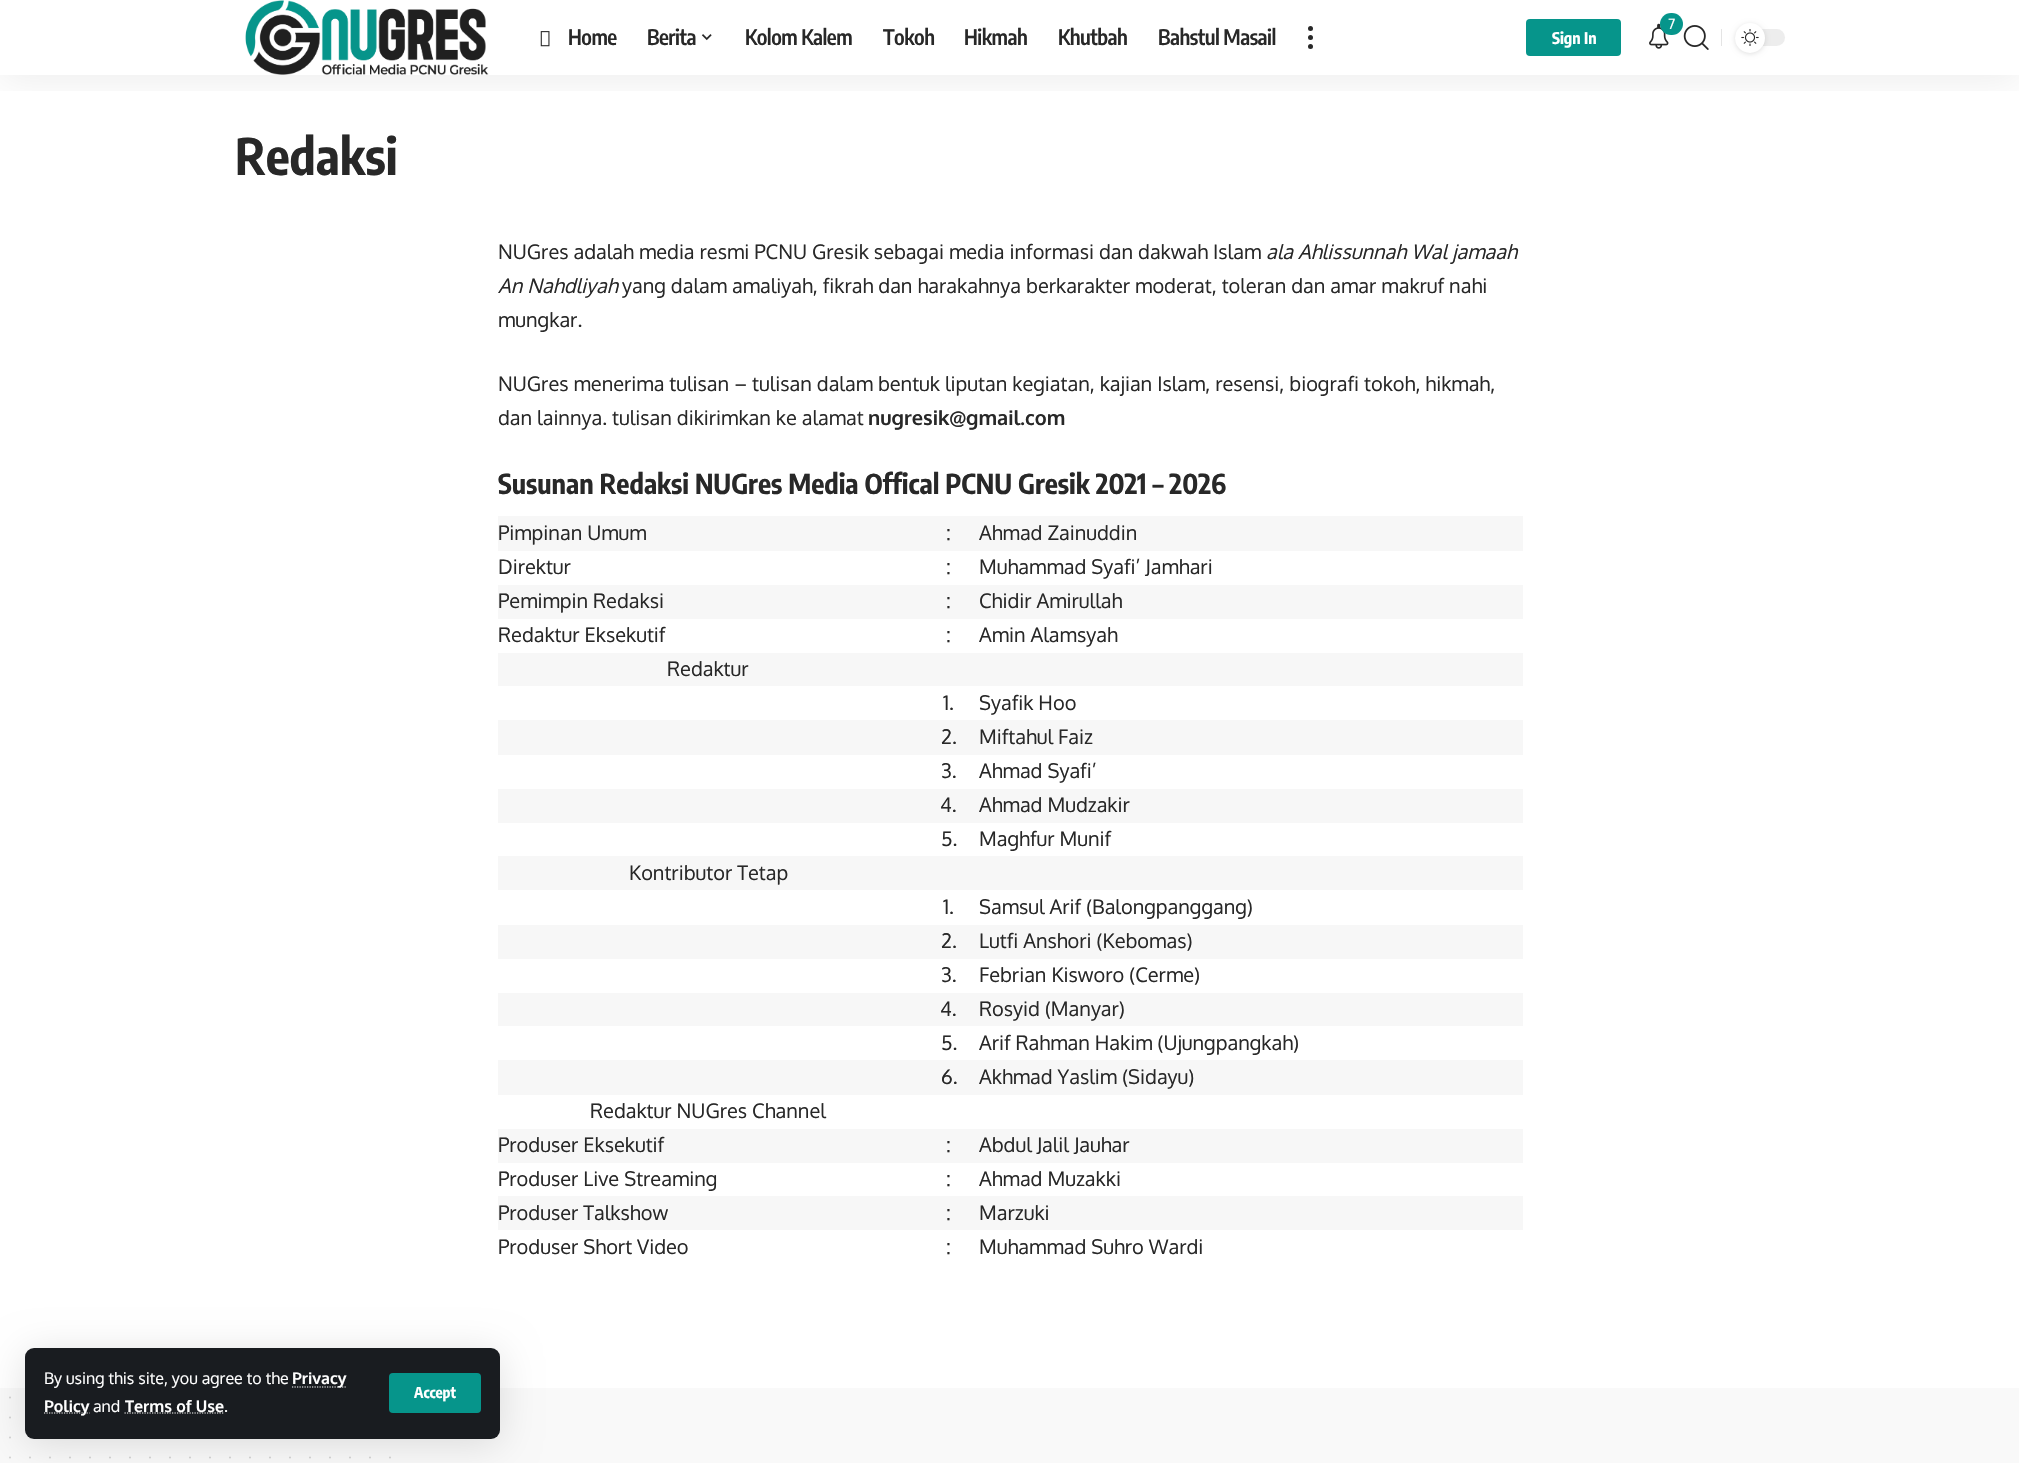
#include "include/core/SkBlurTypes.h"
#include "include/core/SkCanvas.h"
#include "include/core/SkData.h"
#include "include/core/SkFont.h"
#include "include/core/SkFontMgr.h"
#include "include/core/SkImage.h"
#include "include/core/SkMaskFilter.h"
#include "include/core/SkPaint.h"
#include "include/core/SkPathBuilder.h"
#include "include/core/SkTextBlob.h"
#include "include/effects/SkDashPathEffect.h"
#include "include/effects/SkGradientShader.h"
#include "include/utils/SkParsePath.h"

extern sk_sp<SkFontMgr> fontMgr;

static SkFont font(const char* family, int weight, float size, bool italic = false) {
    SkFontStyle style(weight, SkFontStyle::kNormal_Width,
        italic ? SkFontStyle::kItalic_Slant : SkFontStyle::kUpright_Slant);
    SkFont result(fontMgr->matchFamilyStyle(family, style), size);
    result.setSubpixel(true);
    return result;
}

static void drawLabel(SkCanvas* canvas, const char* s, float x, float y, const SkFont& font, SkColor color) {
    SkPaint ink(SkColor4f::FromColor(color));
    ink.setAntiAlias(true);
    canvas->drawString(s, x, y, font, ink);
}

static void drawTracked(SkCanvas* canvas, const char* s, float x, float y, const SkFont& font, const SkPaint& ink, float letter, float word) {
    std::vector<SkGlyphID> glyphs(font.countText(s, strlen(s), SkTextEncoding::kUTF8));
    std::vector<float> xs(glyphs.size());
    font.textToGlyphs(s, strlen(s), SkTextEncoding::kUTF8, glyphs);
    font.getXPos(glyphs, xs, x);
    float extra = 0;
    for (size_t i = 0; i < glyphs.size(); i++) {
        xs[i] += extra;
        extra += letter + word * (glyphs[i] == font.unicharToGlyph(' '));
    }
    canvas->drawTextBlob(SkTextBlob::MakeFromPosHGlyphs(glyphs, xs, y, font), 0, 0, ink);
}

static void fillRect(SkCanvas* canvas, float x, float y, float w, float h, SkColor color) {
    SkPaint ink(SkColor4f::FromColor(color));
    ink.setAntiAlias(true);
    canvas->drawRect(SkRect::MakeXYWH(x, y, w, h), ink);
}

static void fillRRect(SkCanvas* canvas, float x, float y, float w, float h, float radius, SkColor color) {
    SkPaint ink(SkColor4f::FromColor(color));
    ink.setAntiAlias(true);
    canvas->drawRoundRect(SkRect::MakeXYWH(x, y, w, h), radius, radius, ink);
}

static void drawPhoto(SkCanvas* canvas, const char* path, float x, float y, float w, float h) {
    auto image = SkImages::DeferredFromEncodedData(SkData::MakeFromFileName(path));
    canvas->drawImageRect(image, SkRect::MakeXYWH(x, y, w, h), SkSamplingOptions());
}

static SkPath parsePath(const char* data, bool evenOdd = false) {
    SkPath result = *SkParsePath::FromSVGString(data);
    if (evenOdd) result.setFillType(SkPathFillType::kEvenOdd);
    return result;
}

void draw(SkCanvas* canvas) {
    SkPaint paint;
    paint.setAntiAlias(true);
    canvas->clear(0xFFFFFFFF);
    canvas->save();
    canvas->clipRect(SkRect::MakeXYWH(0, 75, 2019, 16));
    paint.setColor(0x12000000);
    paint.setMaskFilter(SkMaskFilter::MakeBlur(kNormal_SkBlurStyle, 19));
    canvas->drawRect(SkRect::MakeXYWH(0, 5, 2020, 75), paint);
    paint.setMaskFilter(nullptr);
    canvas->restore();
    drawPhoto(canvas, "assets/img1.png", 245, 0, 244, 75);
    drawPhoto(canvas, "assets/img2.png", 540, 31, 10, 16);
    SkFont font1 = font("Encode Sans Condensed", 600, 21.25f);
    paint.setColor(0xFF282828);
    drawTracked(canvas, "Home", 568, 45, font1, paint, -0.5f, 0);
    drawTracked(canvas, "Berita", 647, 45, font1, paint, -0.5f, 0);
    drawPhoto(canvas, "assets/img3.png", 701, 34, 11, 7);
    drawTracked(canvas, "Kolom Kalem", 745, 45, font1, paint, -0.5f, 0);
    drawTracked(canvas, "Tokoh", 883, 45, font1, paint, -0.5f, 0);
    drawTracked(canvas, "Hikmah", 964, 45, font1, paint, -0.5f, 0);
    drawTracked(canvas, "Khutbah", 1058, 45, font1, paint, -0.5f, 0);
    drawTracked(canvas, "Bahstul Masail", 1158, 45, font1, paint, -0.5f, 0);
    canvas->drawCircle(1310.5f, 28.5f, 2.5f, paint);
    canvas->drawCircle(1310.5f, 37.5f, 2.5f, paint);
    canvas->drawCircle(1310.5f, 46.5f, 2.5f, paint);
    drawPhoto(canvas, "assets/img4.png", 1649, 23, 20, 26);
    fillRRect(canvas, 1660, 13, 23, 22, 11, 0xFF06958B);
    SkFont font2 = font("Oxygen", 400, 14);
    drawLabel(canvas, "7", 1668, 29, font2, 0xFFFFFFFF);
    fillRect(canvas, 1721, 29, 1, 17, 0xFFE4E4E4);
    fillRRect(canvas, 1735, 29, 50, 17, 8.5f, 0xFFEDEDED);
    paint.setColor(0x1F000000);
    paint.setMaskFilter(SkMaskFilter::MakeBlur(kNormal_SkBlurStyle, 2.5f));
    canvas->drawRoundRect(SkRect::MakeXYWH(1735, 24, 30, 30), 15, 15, paint);
    paint.setMaskFilter(nullptr);
    paint.setColor(0xFFFFFFFF);
    canvas->drawCircle(1750, 38, 15, paint);
    drawPhoto(canvas, "assets/img5.png", 1741, 29, 18, 17);
    fillRRect(canvas, 1526, 19, 95, 37, 4, 0xFF06958B);
    SkFont font3 = font("Encode Sans Condensed", 700, 16);
    drawLabel(canvas, "Sign In", 1552, 44, font3, 0xFFFFFFFF);
    drawPhoto(canvas, "assets/img6.png", 1683, 25, 26, 25);
    fillRect(canvas, 0, 1388, 2019, 75, 0xFFF9F9F9);
    paint.setStroke(true);
    paint.setStrokeWidth(1.9f);
    paint.setStrokeCap(SkPaint::kRound_Cap);
    paint.setColor(0xFFCFCFCF);
    paint.setPathEffect(SkDashPathEffect::Make({{0, 20}}, 0));
    canvas->drawPath(parsePath("M10 1397.5H390.2"), paint);
    paint.setPathEffect(nullptr);
    paint.setPathEffect(SkDashPathEffect::Make({{0, 20}}, 0));
    canvas->drawPath(parsePath("M10 1417.5H390.2"), paint);
    paint.setPathEffect(nullptr);
    paint.setPathEffect(SkDashPathEffect::Make({{0, 20}}, 0));
    canvas->drawPath(parsePath("M10 1437.5H390.2"), paint);
    paint.setPathEffect(nullptr);
    paint.setPathEffect(SkDashPathEffect::Make({{0, 20}}, 0));
    canvas->drawPath(parsePath("M10 1457.5H390.2"), paint);
    paint.setPathEffect(nullptr);
    paint.setStroke(false);
    paint.setColor(0x1F000000);
    paint.setMaskFilter(SkMaskFilter::MakeBlur(kNormal_SkBlurStyle, 19));
    canvas->drawRoundRect(SkRect::MakeXYWH(25, 1353, 475, 91), 9, 9, paint);
    paint.setMaskFilter(nullptr);
    fillRRect(canvas, 25, 1348, 475, 91, 9, 0xFF191C20);
    SkFont font4 = font("Oxygen", 400, 16);
    drawLabel(canvas, "By using this site, you agree to the", 44, 1384, font4, 0xFFFFFFFF);
    paint.setStroke(true);
    paint.setStrokeWidth(1.2f);
    paint.setStrokeCap(SkPaint::kButt_Cap);
    paint.setColor(0xFFFFFFFF);
    paint.setPathEffect(SkDashPathEffect::Make({{1.25f, 1.25f}}, 0));
    canvas->drawPath(parsePath("M292 1387H346.5"), paint);
    paint.setPathEffect(nullptr);
    SkFont font5 = font("Oxygen", 700, 16);
    drawLabel(canvas, "Privacy", 292, 1384, font5, 0xFFFFFFFF);
    paint.setPathEffect(SkDashPathEffect::Make({{1.25f, 1.25f}}, 0));
    canvas->drawPath(parsePath("M44 1413H89.5"), paint);
    paint.setPathEffect(nullptr);
    drawLabel(canvas, "Policy", 44, 1412, font5, 0xFFFFFFFF);
    drawLabel(canvas, "and", 93, 1412, font4, 0xFFFFFFFF);
    paint.setPathEffect(SkDashPathEffect::Make({{1.25f, 1.25f}}, 0));
    canvas->drawPath(parsePath("M124.5 1413H223.5"), paint);
    paint.setPathEffect(nullptr);
    drawLabel(canvas, "Terms of Use", 125, 1412, font5, 0xFFFFFFFF);
    drawLabel(canvas, ".", 224, 1412, font4, 0xFFFFFFFF);
    fillRRect(canvas, 389, 1373, 92, 40, 4, 0xFF06958B);
    SkFont font6 = font("Encode Sans Condensed", 700, 15);
    drawLabel(canvas, "Accept", 414, 1398, font6, 0xFFFFFFFF);
    SkFont font7 = font("Encode Sans Condensed", 700, 50);
    drawLabel(canvas, "Redaksi", 235, 175, font7, 0xFF282828);
    SkFont font8 = font("Oxygen", 400, 20);
    drawLabel(canvas, "NUGres adalah media resmi PCNU Gresik sebagai media informasi dan dakwah Islam", 498, 259, font8, 0xFF282828);
    SkFont font9 = font("Oxygen", 400, 20, true);
    drawLabel(canvas, "ala Ahlissunnah Wal jamaah", 1266, 259, font9, 0xFF282828);
    drawLabel(canvas, "An Nahdliyah", 498, 293, font9, 0xFF282828);
    drawLabel(canvas, "yang dalam amaliyah, fikrah dan harakahnya berkarakter moderat, toleran dan amar makruf nahi", 622, 293, font8, 0xFF282828);
    drawLabel(canvas, "mungkar.", 498, 327, font8, 0xFF282828);
    drawLabel(canvas, "NUGres menerima tulisan – tulisan dalam bentuk liputan kegiatan, kajian Islam, resensi, biografi tokoh, hikmah,", 498, 391, font8, 0xFF282828);
    drawLabel(canvas, "dan lainnya. tulisan dikirimkan ke alamat", 498, 425, font8, 0xFF282828);
    SkFont font10 = font("Oxygen", 700, 20);
    drawLabel(canvas, "nugresik@gmail.com", 868, 425, font10, 0xFF282828);
    SkFont font11 = font("Encode Sans Condensed", 700, 27.5f);
    drawLabel(canvas, "Susunan Redaksi NUGres Media Offical PCNU Gresik 2021 – 2026", 498, 494, font11, 0xFF282828);
    fillRect(canvas, 498, 516, 1025, 35, 0xFFF7F7F7);
    drawLabel(canvas, "Pimpinan Umum", 498, 540, font8, 0xFF282828);
    drawLabel(canvas, ":", 946, 540, font8, 0xFF282828);
    drawLabel(canvas, "Ahmad Zainuddin", 979, 540, font8, 0xFF282828);
    drawLabel(canvas, "Direktur", 498, 574, font8, 0xFF282828);
    drawLabel(canvas, ":", 946, 574, font8, 0xFF282828);
    drawLabel(canvas, "Muhammad Syafi’ Jamhari", 979, 574, font8, 0xFF282828);
    fillRect(canvas, 498, 585, 1025, 34, 0xFFF7F7F7);
    drawLabel(canvas, "Pemimpin Redaksi", 498, 608, font8, 0xFF282828);
    drawLabel(canvas, ":", 946, 608, font8, 0xFF282828);
    drawLabel(canvas, "Chidir Amirullah", 979, 608, font8, 0xFF282828);
    drawLabel(canvas, "Redaktur Eksekutif", 498, 642, font8, 0xFF282828);
    drawLabel(canvas, ":", 946, 642, font8, 0xFF282828);
    drawLabel(canvas, "Amin Alamsyah", 979, 642, font8, 0xFF282828);
    fillRect(canvas, 498, 653, 1025, 33, 0xFFF7F7F7);
    drawLabel(canvas, "Redaktur", 667, 676, font8, 0xFF282828);
    drawLabel(canvas, "1.", 943, 710, font8, 0xFF282828);
    drawLabel(canvas, "Syafik Hoo", 979, 710, font8, 0xFF282828);
    fillRect(canvas, 498, 720, 1025, 35, 0xFFF7F7F7);
    drawLabel(canvas, "2.", 941, 744, font8, 0xFF282828);
    drawLabel(canvas, "Miftahul Faiz", 979, 744, font8, 0xFF282828);
    drawLabel(canvas, "3.", 941, 778, font8, 0xFF282828);
    drawLabel(canvas, "Ahmad Syafi’", 979, 778, font8, 0xFF282828);
    fillRect(canvas, 498, 789, 1025, 34, 0xFFF7F7F7);
    drawLabel(canvas, "4.", 940, 812, font8, 0xFF282828);
    drawLabel(canvas, "Ahmad Mudzakir", 979, 812, font8, 0xFF282828);
    drawLabel(canvas, "5.", 941, 846, font8, 0xFF282828);
    drawLabel(canvas, "Maghfur Munif", 979, 846, font8, 0xFF282828);
    fillRect(canvas, 498, 856, 1025, 34, 0xFFF7F7F7);
    drawLabel(canvas, "Kontributor Tetap", 629, 880, font8, 0xFF282828);
    drawLabel(canvas, "1.", 943, 914, font8, 0xFF282828);
    drawLabel(canvas, "Samsul Arif (Balongpanggang)", 979, 914, font8, 0xFF282828);
    fillRect(canvas, 498, 925, 1025, 34, 0xFFF7F7F7);
    drawLabel(canvas, "2.", 941, 948, font8, 0xFF282828);
    drawLabel(canvas, "Lutfi Anshori (Kebomas)", 979, 948, font8, 0xFF282828);
    drawLabel(canvas, "3.", 941, 982, font8, 0xFF282828);
    drawLabel(canvas, "Febrian Kisworo (Cerme)", 979, 982, font8, 0xFF282828);
    fillRect(canvas, 498, 993, 1025, 33, 0xFFF7F7F7);
    drawLabel(canvas, "4.", 940, 1016, font8, 0xFF282828);
    drawLabel(canvas, "Rosyid (Manyar)", 979, 1016, font8, 0xFF282828);
    drawLabel(canvas, "5.", 941, 1050, font8, 0xFF282828);
    drawLabel(canvas, "Arif Rahman Hakim (Ujungpangkah)", 979, 1050, font8, 0xFF282828);
    fillRect(canvas, 498, 1060, 1025, 35, 0xFFF7F7F7);
    drawLabel(canvas, "6.", 941, 1084, font8, 0xFF282828);
    drawLabel(canvas, "Akhmad Yaslim (Sidayu)", 979, 1084, font8, 0xFF282828);
    drawLabel(canvas, "Redaktur NUGres Channel", 590, 1118, font8, 0xFF282828);
    fillRect(canvas, 498, 1129, 1025, 34, 0xFFF7F7F7);
    drawLabel(canvas, "Produser Eksekutif", 498, 1152, font8, 0xFF282828);
    drawLabel(canvas, ":", 946, 1152, font8, 0xFF282828);
    drawLabel(canvas, "Abdul Jalil Jauhar", 979, 1152, font8, 0xFF282828);
    drawLabel(canvas, "Produser Live Streaming", 498, 1186, font8, 0xFF282828);
    drawLabel(canvas, ":", 946, 1186, font8, 0xFF282828);
    drawLabel(canvas, "Ahmad Muzakki", 979, 1186, font8, 0xFF282828);
    fillRect(canvas, 498, 1196, 1025, 34, 0xFFF7F7F7);
    drawLabel(canvas, "Produser Talkshow", 498, 1220, font8, 0xFF282828);
    drawLabel(canvas, ":", 946, 1220, font8, 0xFF282828);
    drawLabel(canvas, "Marzuki", 979, 1220, font8, 0xFF282828);
    drawLabel(canvas, "Produser Short Video", 498, 1254, font8, 0xFF282828);
    drawLabel(canvas, ":", 946, 1254, font8, 0xFF282828);
    drawLabel(canvas, "Muhammad Suhro Wardi", 979, 1254, font8, 0xFF282828);
}
